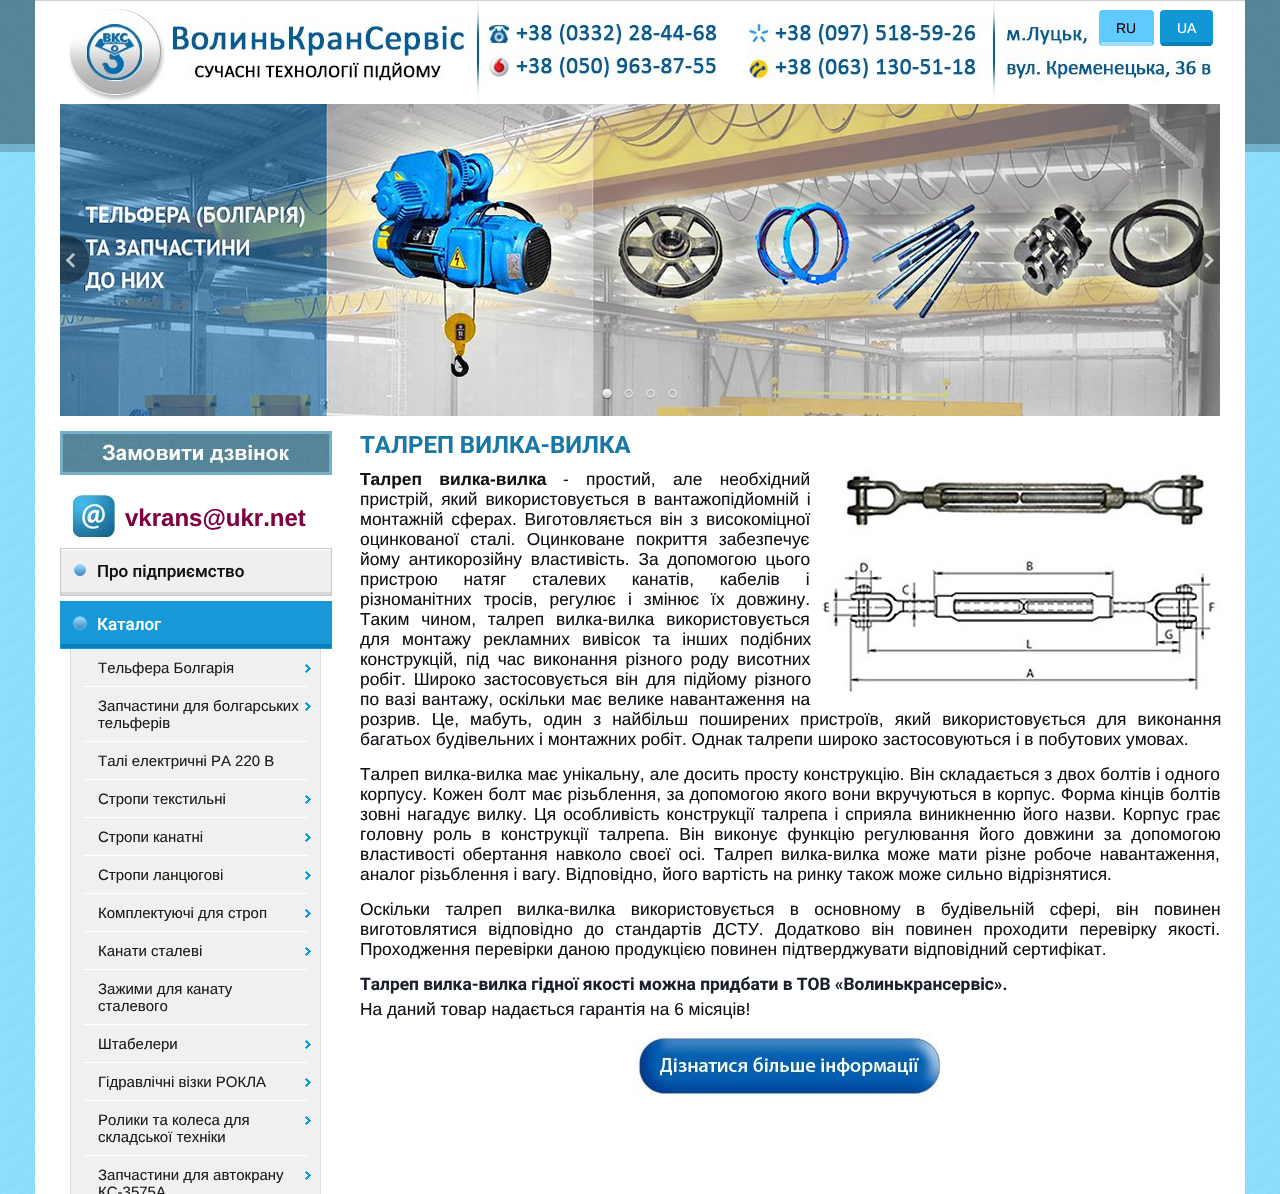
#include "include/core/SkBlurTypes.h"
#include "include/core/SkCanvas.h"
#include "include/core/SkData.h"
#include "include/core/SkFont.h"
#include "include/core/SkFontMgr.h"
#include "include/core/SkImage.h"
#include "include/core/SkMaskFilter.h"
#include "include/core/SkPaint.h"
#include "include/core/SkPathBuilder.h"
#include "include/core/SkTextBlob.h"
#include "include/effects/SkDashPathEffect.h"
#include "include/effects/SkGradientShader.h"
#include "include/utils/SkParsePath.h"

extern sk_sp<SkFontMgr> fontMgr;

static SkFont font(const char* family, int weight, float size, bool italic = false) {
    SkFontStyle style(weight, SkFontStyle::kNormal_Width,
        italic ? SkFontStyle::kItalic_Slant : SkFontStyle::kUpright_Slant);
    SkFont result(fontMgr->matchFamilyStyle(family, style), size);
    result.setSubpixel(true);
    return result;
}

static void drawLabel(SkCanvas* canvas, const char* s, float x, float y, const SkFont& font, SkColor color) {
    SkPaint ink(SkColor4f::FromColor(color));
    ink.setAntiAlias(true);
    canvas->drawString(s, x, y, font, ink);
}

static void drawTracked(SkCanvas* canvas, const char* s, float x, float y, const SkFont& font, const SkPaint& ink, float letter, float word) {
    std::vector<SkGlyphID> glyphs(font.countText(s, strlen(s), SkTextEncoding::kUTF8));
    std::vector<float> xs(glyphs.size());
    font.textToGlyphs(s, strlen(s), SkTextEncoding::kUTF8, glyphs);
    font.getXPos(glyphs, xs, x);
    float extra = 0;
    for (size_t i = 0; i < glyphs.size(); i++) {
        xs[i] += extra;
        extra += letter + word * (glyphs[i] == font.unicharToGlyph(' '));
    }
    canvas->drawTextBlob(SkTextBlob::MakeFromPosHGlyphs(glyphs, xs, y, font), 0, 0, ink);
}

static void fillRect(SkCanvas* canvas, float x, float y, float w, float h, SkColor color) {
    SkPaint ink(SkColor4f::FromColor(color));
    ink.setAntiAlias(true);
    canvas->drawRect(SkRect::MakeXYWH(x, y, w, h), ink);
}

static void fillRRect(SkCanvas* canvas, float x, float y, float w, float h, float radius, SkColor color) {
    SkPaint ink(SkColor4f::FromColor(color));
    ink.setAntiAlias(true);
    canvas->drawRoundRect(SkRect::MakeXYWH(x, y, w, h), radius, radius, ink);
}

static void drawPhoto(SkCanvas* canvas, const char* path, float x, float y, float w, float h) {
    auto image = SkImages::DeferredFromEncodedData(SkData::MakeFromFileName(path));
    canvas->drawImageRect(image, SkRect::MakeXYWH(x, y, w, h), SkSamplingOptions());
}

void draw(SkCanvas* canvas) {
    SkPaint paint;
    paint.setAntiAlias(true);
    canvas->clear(0xFFFFFFFF);
    drawPhoto(canvas, "assets/img1.png", 0, 152, 1280, 1042);
    drawPhoto(canvas, "assets/img2.png", 0, 0, 1280, 152);
    fillRect(canvas, 35, 1, 1210, 1193, 0xFFFFFFFF);
    fillRect(canvas, 35, 0, 1210, 1, 0xFFCBD1D4);
    drawPhoto(canvas, "assets/img3.png", 68, 1, 1144, 100);
    fillRRect(canvas, 1099, 10, 55, 36, 4, 0xFF5FCAFD);
    fillRect(canvas, 1101, 42, 51, 4, 0xFF9FDFFE);
    SkFont font1 = font("Liberation Sans", 400, 14);
    drawLabel(canvas, "RU", 1116, 33, font1, 0xFF220303);
    fillRRect(canvas, 1160, 10, 53, 36, 4, 0xFF1196D6);
    fillRect(canvas, 1162, 42, 49, 4, 0xFF0580BA);
    drawLabel(canvas, "UA", 1177, 33, font1, 0xFFFFFFFF);
    drawPhoto(canvas, "assets/img4.png", 60, 104, 1160, 312);
    drawPhoto(canvas, "assets/img5.png", 60, 235, 30, 50);
    drawPhoto(canvas, "assets/img6.png", 1190, 235, 30, 50);
    drawPhoto(canvas, "assets/img7.png", 602, 389, 10, 10);
    drawPhoto(canvas, "assets/img8.png", 624, 389, 10, 10);
    drawPhoto(canvas, "assets/img9.png", 646, 389, 10, 10);
    drawPhoto(canvas, "assets/img10.png", 668, 389, 10, 10);
    drawPhoto(canvas, "assets/img11.png", 60, 431, 272, 44);
    drawPhoto(canvas, "assets/img12.png", 71, 494, 45, 45);
    SkFont font2 = font("Liberation Sans", 700, 24);
    drawLabel(canvas, "vkrans@ukr.net", 125, 526, font2, 0xFF800040);
    fillRect(canvas, 61, 550, 270, 42, 0xFFF0EEEF);
    drawPhoto(canvas, "assets/img13.png", 74, 564, 12, 12);
    fillRect(canvas, 61, 592, 270, 3, 0xFFD8D8D8);
    paint.setStroke(true);
    paint.setStrokeWidth(1);
    paint.setColor(0xFFCAC8C8);
    canvas->drawRect(SkRect::MakeXYWH(60.5f, 548.5f, 271, 47), paint);
    SkFont font3 = font("Roboto", 500, 17);
    drawLabel(canvas, "Про підприємство", 97, 577, font3, 0xFF110F10);
    fillRect(canvas, 60, 601, 272, 48, 0xFF1899D7);
    drawPhoto(canvas, "assets/img14.png", 73, 616, 14, 14);
    fillRect(canvas, 61, 644, 270, 4, 0xFF0580BA);
    drawLabel(canvas, "Каталог", 97, 630, font3, 0xFFFFFFFF);
    fillRect(canvas, 71, 649, 249, 545, 0xFFF1F0F0);
    drawPhoto(canvas, "assets/img15.png", 305, 664, 6, 9);
    fillRect(canvas, 320, 649, 1, 545, 0xFFDFDFDF);
    fillRect(canvas, 70, 649, 1, 545, 0xFFDFDFDF);
    SkFont font4 = font("Liberation Sans", 400, 15);
    drawLabel(canvas, "Тельфера Болгарія", 98, 673, font4, 0xFF1D1E19);
    fillRect(canvas, 83, 686, 225, 1, 0xFFFFFFFF);
    drawPhoto(canvas, "assets/img15.png", 305, 702, 6, 9);
    drawLabel(canvas, "Запчастини для болгарських", 98, 711, font4, 0xFF1D1E19);
    drawLabel(canvas, "тельферів", 98, 728, font4, 0xFF1D1E19);
    fillRect(canvas, 83, 741, 225, 1, 0xFFFFFFFF);
    drawLabel(canvas, "Талі електричні PA 220 В", 98, 766, font4, 0xFF1D1E19);
    fillRect(canvas, 83, 779, 225, 1, 0xFFFFFFFF);
    drawPhoto(canvas, "assets/img15.png", 305, 795, 6, 9);
    drawLabel(canvas, "Стропи текстильні", 98, 804, font4, 0xFF1D1E19);
    fillRect(canvas, 83, 817, 225, 1, 0xFFFFFFFF);
    drawPhoto(canvas, "assets/img15.png", 305, 833, 6, 9);
    drawLabel(canvas, "Стропи канатні", 98, 842, font4, 0xFF1D1E19);
    fillRect(canvas, 83, 855, 225, 1, 0xFFFFFFFF);
    drawPhoto(canvas, "assets/img15.png", 305, 871, 6, 9);
    drawLabel(canvas, "Стропи ланцюгові", 98, 880, font4, 0xFF1D1E19);
    fillRect(canvas, 83, 893, 225, 1, 0xFFFFFFFF);
    drawPhoto(canvas, "assets/img15.png", 305, 909, 6, 9);
    drawLabel(canvas, "Комплектуючі для строп", 98, 918, font4, 0xFF1D1E19);
    fillRect(canvas, 83, 931, 225, 1, 0xFFFFFFFF);
    drawPhoto(canvas, "assets/img15.png", 305, 947, 6, 9);
    drawLabel(canvas, "Канати сталеві", 98, 956, font4, 0xFF1D1E19);
    fillRect(canvas, 83, 969, 225, 1, 0xFFFFFFFF);
    drawLabel(canvas, "Зажими для канату", 98, 994, font4, 0xFF1D1E19);
    drawLabel(canvas, "сталевого", 98, 1011, font4, 0xFF1D1E19);
    fillRect(canvas, 83, 1024, 225, 1, 0xFFFFFFFF);
    drawPhoto(canvas, "assets/img15.png", 305, 1040, 6, 9);
    drawLabel(canvas, "Штабелери", 98, 1049, font4, 0xFF1D1E19);
    fillRect(canvas, 83, 1062, 225, 1, 0xFFFFFFFF);
    drawPhoto(canvas, "assets/img15.png", 305, 1078, 6, 9);
    drawLabel(canvas, "Гідравлічні візки РОКЛА", 98, 1087, font4, 0xFF1D1E19);
    fillRect(canvas, 83, 1100, 225, 1, 0xFFFFFFFF);
    drawPhoto(canvas, "assets/img15.png", 305, 1116, 6, 9);
    drawLabel(canvas, "Ролики та колеса для", 98, 1125, font4, 0xFF1D1E19);
    drawLabel(canvas, "складської техніки", 98, 1142, font4, 0xFF1D1E19);
    fillRect(canvas, 83, 1155, 225, 1, 0xFFFFFFFF);
    drawPhoto(canvas, "assets/img15.png", 305, 1171, 6, 9);
    drawLabel(canvas, "Запчастини для автокрану", 98, 1180, font4, 0xFF1D1E19);
    drawLabel(canvas, "КС-3575А", 98, 1197, font4, 0xFF1D1E19);
    SkFont font5 = font("Roboto", 700, 24);
    drawLabel(canvas, "ТАЛРЕП ВИЛКА-ВИЛКА", 360, 453, font5, 0xFF1978A6);
    SkFont font6 = font("Liberation Sans", 700, 17.35f);
    paint.setStroke(false);
    paint.setColor(0xFF121117);
    drawTracked(canvas, "Талреп вилка-вилка", 360, 485, font6, paint, 0, 12.5f);
    drawPhoto(canvas, "assets/img16.png", 820, 469, 400, 224);
    SkFont font7 = font("Liberation Sans", 400, 17.35f);
    drawTracked(canvas, "- простий, але необхідний", 563, 485, font7, paint, 0, 12.5f);
    drawTracked(canvas, "пристрій, який використовується в вантажопідйомній і", 360, 505, font7, paint, 0, 3);
    drawTracked(canvas, "монтажній сферах. Виготовляється він з високоміцної", 360, 525, font7, paint, 0, 3);
    drawTracked(canvas, "оцинкованої сталі. Оцинковане покриття забезпечує", 360, 545, font7, paint, 0, 6.5f);
    drawTracked(canvas, "йому антикорозійну властивість. За допомогою цього", 360, 565, font7, paint, 0, 4);
    drawTracked(canvas, "пристрою натяг сталевих канатів, кабелів і", 360, 585, font7, paint, 0, 21);
    drawTracked(canvas, "різноманітних тросів, регулює і змінює їх довжину.", 360, 605, font7, paint, 0, 7.25f);
    drawTracked(canvas, "Таким чином, талреп вилка-вилка використовується", 360, 625, font7, paint, 0, 7);
    drawTracked(canvas, "для монтажу рекламних вивісок та інших подібних", 360, 645, font7, paint, 0, 7.5f);
    drawTracked(canvas, "конструкцій, під час виконання різного роду висотних", 360, 665, font7, paint, 0, 3.5f);
    drawTracked(canvas, "робіт. Широко застосовується він для підйому різного", 360, 685, font7, paint, 0, 3);
    drawTracked(canvas, "по вазі вантажу, оскільки має велике навантаження на", 360, 705, font7, paint, 0, 1.25f);
    drawTracked(canvas, "розрив. Це, мабуть, один з найбільш поширених пристроїв, який використовується для виконання", 360, 725, font7, paint, 0, 6.25f);
    drawLabel(canvas, "багатьох будівельних і монтажних робіт. Однак талрепи широко застосовуються і в побутових умовах.", 360, 745, font7, 0xFF121117);
    drawTracked(canvas, "Талреп вилка-вилка має унікальну, але досить просту конструкцію. Він складається з двох болтів і одного", 360, 780, font7, paint, 0, 0.25f);
    drawTracked(canvas, "корпусу. Кожен болт має різьблення, за допомогою якого вони вкручуються в корпус. Форма кінців болтів", 360, 800, font7, paint, 0, 0.6f);
    drawTracked(canvas, "зовні нагадує вилку. Ця особливість конструкції талрепа і сприяла виникненню його назви. Корпус грає", 360, 820, font7, paint, 0, 2.1f);
    drawTracked(canvas, "головну роль в конструкції талрепа. Він виконує функцію регулювання його довжини за допомогою", 360, 840, font7, paint, 0, 5.1f);
    drawTracked(canvas, "властивості обертання навколо своєї осі. Талреп вилка-вилка може мати різне робоче навантаження,", 360, 860, font7, paint, 0, 3.25f);
    drawLabel(canvas, "аналог різьблення і вагу. Відповідно, його вартість на ринку також може сильно відрізнятися.", 360, 880, font7, 0xFF121117);
    drawTracked(canvas, "Оскільки талреп вилка-вилка використовується в основному в будівельній сфері, він повинен", 360, 915, font7, paint, 0, 10.5f);
    drawTracked(canvas, "виготовлятися відповідно до стандартів ДСТУ. Додатково він повинен проходити перевірку якості.", 360, 935, font7, paint, 0, 6.5f);
    drawLabel(canvas, "Проходження перевірки даною продукцією повинен підтверджувати відповідний сертифікат.", 360, 955, font7, 0xFF121117);
    SkFont font8 = font("Roboto", 700, 17.35f);
    drawLabel(canvas, "Талреп вилка-вилка гідної якості можна придбати в ТОВ «Волинькрансервіс».", 360, 990, font8, 0xFF1A202C);
    drawLabel(canvas, "На даний товар надається гарантія на 6 місяців!", 360, 1015, font7, 0xFF121117);
    drawPhoto(canvas, "assets/img17.png", 634, 1034, 312, 64);
}
